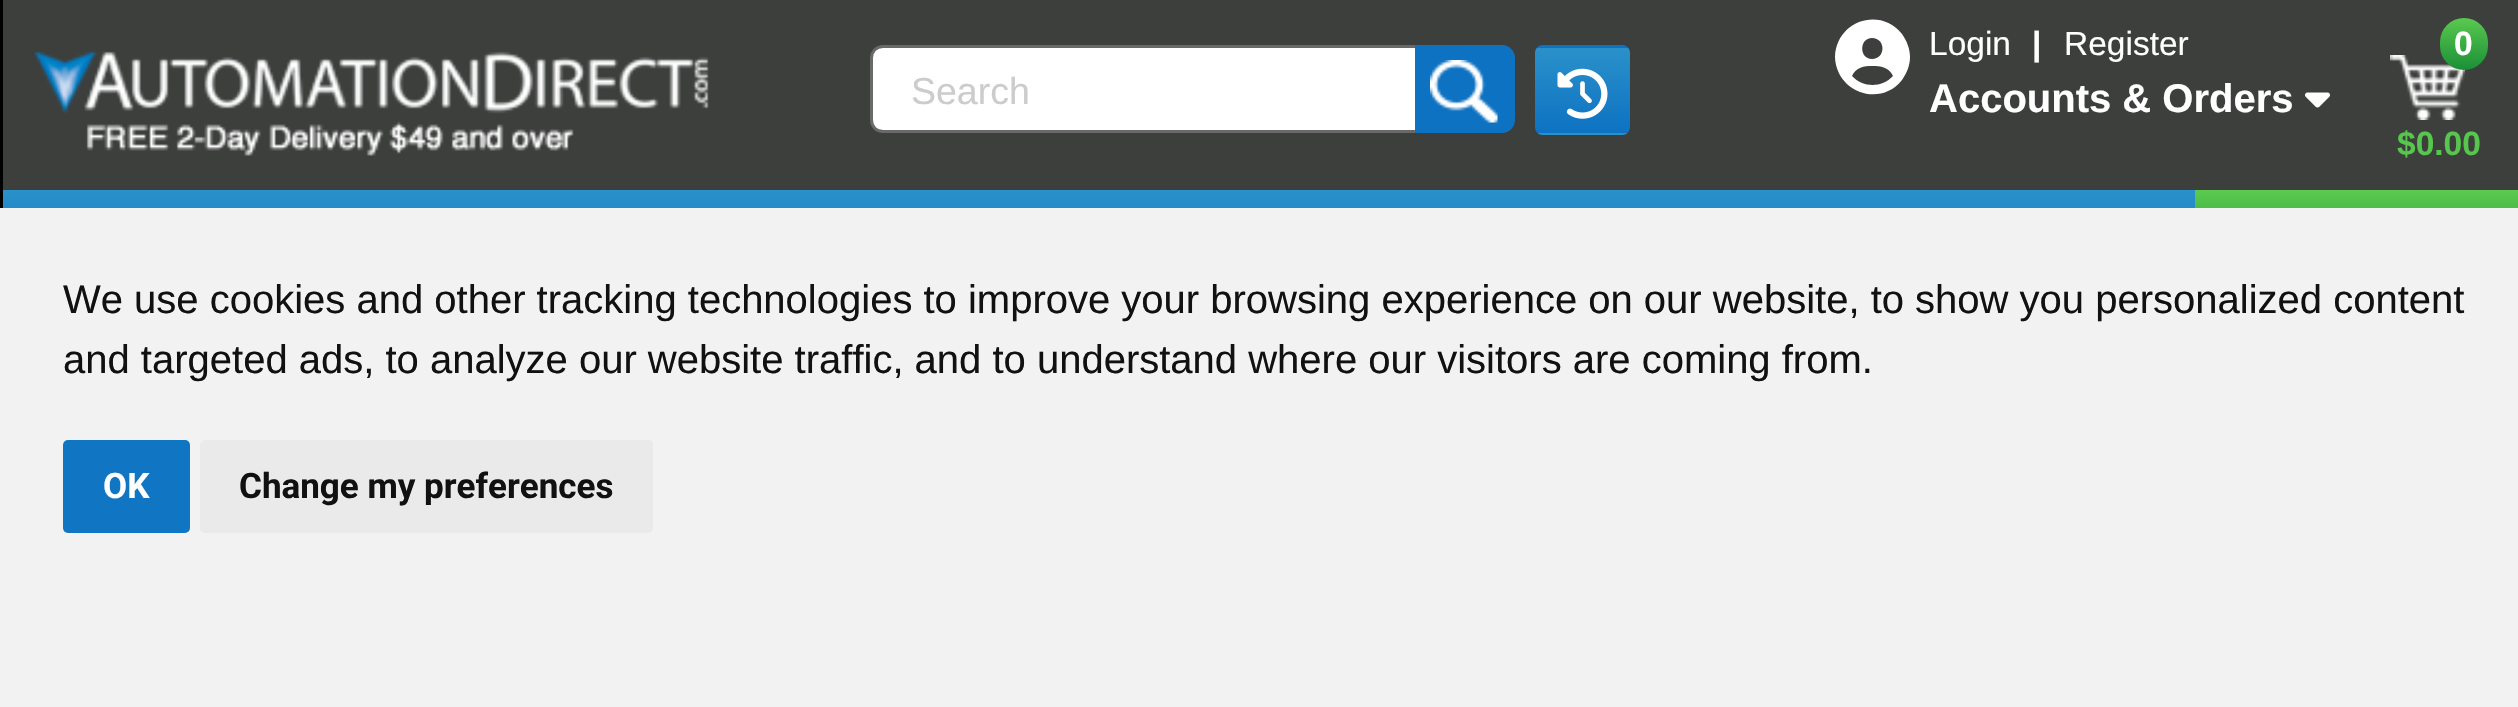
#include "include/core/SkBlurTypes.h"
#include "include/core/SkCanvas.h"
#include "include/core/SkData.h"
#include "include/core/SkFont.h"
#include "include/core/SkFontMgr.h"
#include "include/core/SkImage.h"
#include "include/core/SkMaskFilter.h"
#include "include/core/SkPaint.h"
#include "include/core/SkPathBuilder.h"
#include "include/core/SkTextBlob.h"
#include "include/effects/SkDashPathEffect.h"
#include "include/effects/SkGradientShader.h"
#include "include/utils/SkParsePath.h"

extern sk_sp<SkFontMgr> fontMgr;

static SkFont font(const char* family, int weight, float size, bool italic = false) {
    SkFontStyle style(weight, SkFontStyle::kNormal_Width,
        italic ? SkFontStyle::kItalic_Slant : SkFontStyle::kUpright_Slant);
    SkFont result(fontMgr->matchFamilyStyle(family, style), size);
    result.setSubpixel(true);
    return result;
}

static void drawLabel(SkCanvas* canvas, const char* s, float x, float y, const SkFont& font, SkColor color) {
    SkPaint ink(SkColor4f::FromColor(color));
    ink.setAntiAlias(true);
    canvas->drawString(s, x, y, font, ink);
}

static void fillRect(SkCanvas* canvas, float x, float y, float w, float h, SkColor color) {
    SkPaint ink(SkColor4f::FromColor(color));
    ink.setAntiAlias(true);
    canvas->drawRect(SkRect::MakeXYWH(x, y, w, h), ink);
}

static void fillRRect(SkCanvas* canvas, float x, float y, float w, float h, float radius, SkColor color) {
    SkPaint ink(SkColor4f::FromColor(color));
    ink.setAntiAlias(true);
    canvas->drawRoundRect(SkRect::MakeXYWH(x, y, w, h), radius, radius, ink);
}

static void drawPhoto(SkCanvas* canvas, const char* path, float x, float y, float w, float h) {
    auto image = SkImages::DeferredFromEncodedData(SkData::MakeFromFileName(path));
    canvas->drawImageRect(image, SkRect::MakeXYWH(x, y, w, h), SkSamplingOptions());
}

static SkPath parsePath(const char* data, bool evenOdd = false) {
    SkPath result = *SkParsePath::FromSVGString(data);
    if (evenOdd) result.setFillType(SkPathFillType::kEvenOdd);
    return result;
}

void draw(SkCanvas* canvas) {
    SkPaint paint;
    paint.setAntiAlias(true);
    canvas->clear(0xFF000000);
    fillRect(canvas, 3, 0, 2515, 190, 0xFF3D3F3D);
    drawPhoto(canvas, "assets/img1.png", 34, 51, 675, 105);
    paint.setColor(0xFFFFFFFF);
    canvas->drawPath(parsePath("M883 46.5H1423.5V131.5H883C876.5 131.5 871.5 126.5 871.5 120V58C871.5 51.5 876.5 46.5 883 46.5Z"), paint);
    paint.setStroke(true);
    paint.setStrokeWidth(3);
    paint.setColor(0xFF696969);
    canvas->drawPath(parsePath("M883 46.5H1423.5V131.5H883C876.5 131.5 871.5 126.5 871.5 120V58C871.5 51.5 876.5 46.5 883 46.5Z"), paint);
    SkFont font1 = font("Liberation Sans", 400, 37.5f);
    drawLabel(canvas, "Search", 911, 104, font1, 0xFFCCCCCC);
    paint.setStroke(false);
    paint.setColor(0xFF0D72C2);
    canvas->drawPath(parsePath("M1415 45H1502C1509 45 1515 51 1515 58V120C1515 127 1509 133 1502 133H1415Z"), paint);
    drawPhoto(canvas, "assets/img2.png", 1430, 60, 68, 63);
    canvas->save();
    canvas->clipPath(parsePath("M1543 45H1622C1626.5 45 1630 48.5 1630 53V127C1630 131.5 1626.5 135 1622 135H1543C1538.5 135 1535 131.5 1535 127V53C1535 48.5 1538.5 45 1543 45Z"), true);
    {
        const SkColor colors[] = {0xFF2B91CA, 0xFF0D72C2};
        const float stops[] = {0, 1};
        const SkPoint ends[] = {{1583, -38}, {1583, 48}};
        paint.setShader(SkGradientShader::MakeLinear(ends, colors, stops, 2, SkTileMode::kClamp));
        paint.setAlpha(255);
    }
    canvas->drawRect(SkRect::MakeXYWH(1535, 45, 95, 3), paint);
    {
        const SkColor colors[] = {0xFF2B91CA, 0xFF0D72C2};
        const float stops[] = {0, 1};
        const SkPoint ends[] = {{1583, 47}, {1583, 133}};
        paint.setShader(SkGradientShader::MakeLinear(ends, colors, stops, 2, SkTileMode::kClamp));
        paint.setAlpha(255);
    }
    canvas->drawRect(SkRect::MakeXYWH(1535, 48, 95, 85), paint);
    {
        const SkColor colors[] = {0xFF2B91CA, 0xFF0D72C2};
        const float stops[] = {0, 1};
        const SkPoint ends[] = {{1583, 133}, {1583, 218}};
        paint.setShader(SkGradientShader::MakeLinear(ends, colors, stops, 2, SkTileMode::kClamp));
        paint.setAlpha(255);
    }
    canvas->drawRect(SkRect::MakeXYWH(1535, 133, 95, 2), paint);
    canvas->restore();
    drawPhoto(canvas, "assets/img3.png", 1557, 68, 51, 51);
    paint.setShader(nullptr);
    paint.setColor(0xFFFFFFFF);
    canvas->drawPath(parsePath("M1893 76C1889 67 1881 66 1872 66C1864 66 1856 67 1852 76C1863 88 1882 88 1893 76ZM1835 57C1836 21 1880 6 1902 34C1907 41 1910 49 1910 57C1910 65 1907 73 1902 80C1880 108 1836 92 1835 57ZM1872 59C1886 59 1886 38 1872 38C1859 38 1859 59 1872 59Z"), paint);
    SkFont font2 = font("Liberation Sans", 400, 33.5f);
    drawLabel(canvas, "Login", 1929, 55, font2, 0xFFFFFFFF);
    SkFont font3 = font("Liberation Sans", 700, 33.5f);
    drawLabel(canvas, "|", 2032, 55, font3, 0xFFFFFFFF);
    drawLabel(canvas, "Register", 2064, 55, font2, 0xFFFFFFFF);
    SkFont font4 = font("Liberation Sans", 700, 40);
    drawLabel(canvas, "Accounts & Orders", 1929, 112, font4, 0xFFFFFFFF);
    drawPhoto(canvas, "assets/img4.png", 2305, 92, 25, 16);
    drawPhoto(canvas, "assets/img5.png", 2390, 55, 75, 65);
    {
        const SkColor colors[] = {0xFF5BCA4F, 0xFF1B8F37};
        const float stops[] = {0, 1};
        const SkPoint ends[] = {{2464, 17}, {2464, 70}};
        paint.setShader(SkGradientShader::MakeLinear(ends, colors, stops, 2, SkTileMode::kClamp));
        paint.setAlpha(255);
    }
    canvas->drawRoundRect(SkRect::MakeXYWH(2440, 18, 48, 52), 24, 24, paint);
    drawLabel(canvas, "0", 2454, 55, font3, 0xFFFFFFFF);
    drawLabel(canvas, "$0.00", 2397, 155, font3, 0xFF56C64D);
    {
        const SkColor colors[] = {0xFF2B91CA, 0xFF0D72C2};
        const float stops[] = {0, 1};
        const SkPoint ends[] = {{1260, 190}, {1260, 273}};
        paint.setShader(SkGradientShader::MakeLinear(ends, colors, stops, 2, SkTileMode::kClamp));
        paint.setAlpha(255);
    }
    canvas->drawRect(SkRect::MakeXYWH(3, 190, 2192, 18), paint);
    {
        const SkColor colors[] = {0xFF5BCA4F, 0xFF1B8F37};
        const float stops[] = {0, 1};
        const SkPoint ends[] = {{2356, 190}, {2356, 273}};
        paint.setShader(SkGradientShader::MakeLinear(ends, colors, stops, 2, SkTileMode::kClamp));
        paint.setAlpha(255);
    }
    canvas->drawRect(SkRect::MakeXYWH(2195, 190, 323, 18), paint);
    fillRect(canvas, 0, 208, 2518, 499, 0xFFF2F2F2);
    SkFont font5 = font("Liberation Sans", 400, 40);
    drawLabel(canvas, "We use cookies and other tracking technologies to improve your browsing experience on our website, to show you personalized content", 63, 313, font5, 0xFF111111);
    drawLabel(canvas, "and targeted ads, to analyze our website traffic, and to understand where our visitors are coming from.", 63, 373, font5, 0xFF111111);
    fillRRect(canvas, 63, 440, 127, 93, 5, 0xFF1075C3);
    SkFont font6 = font("Roboto", 700, 35);
    drawLabel(canvas, "OK", 103, 498, font6, 0xFFFFFFFF);
    fillRRect(canvas, 200, 440, 453, 93, 5, 0xFFEAEAEA);
    drawLabel(canvas, "Change my preferences", 239, 498, font6, 0xFF111111);
}
